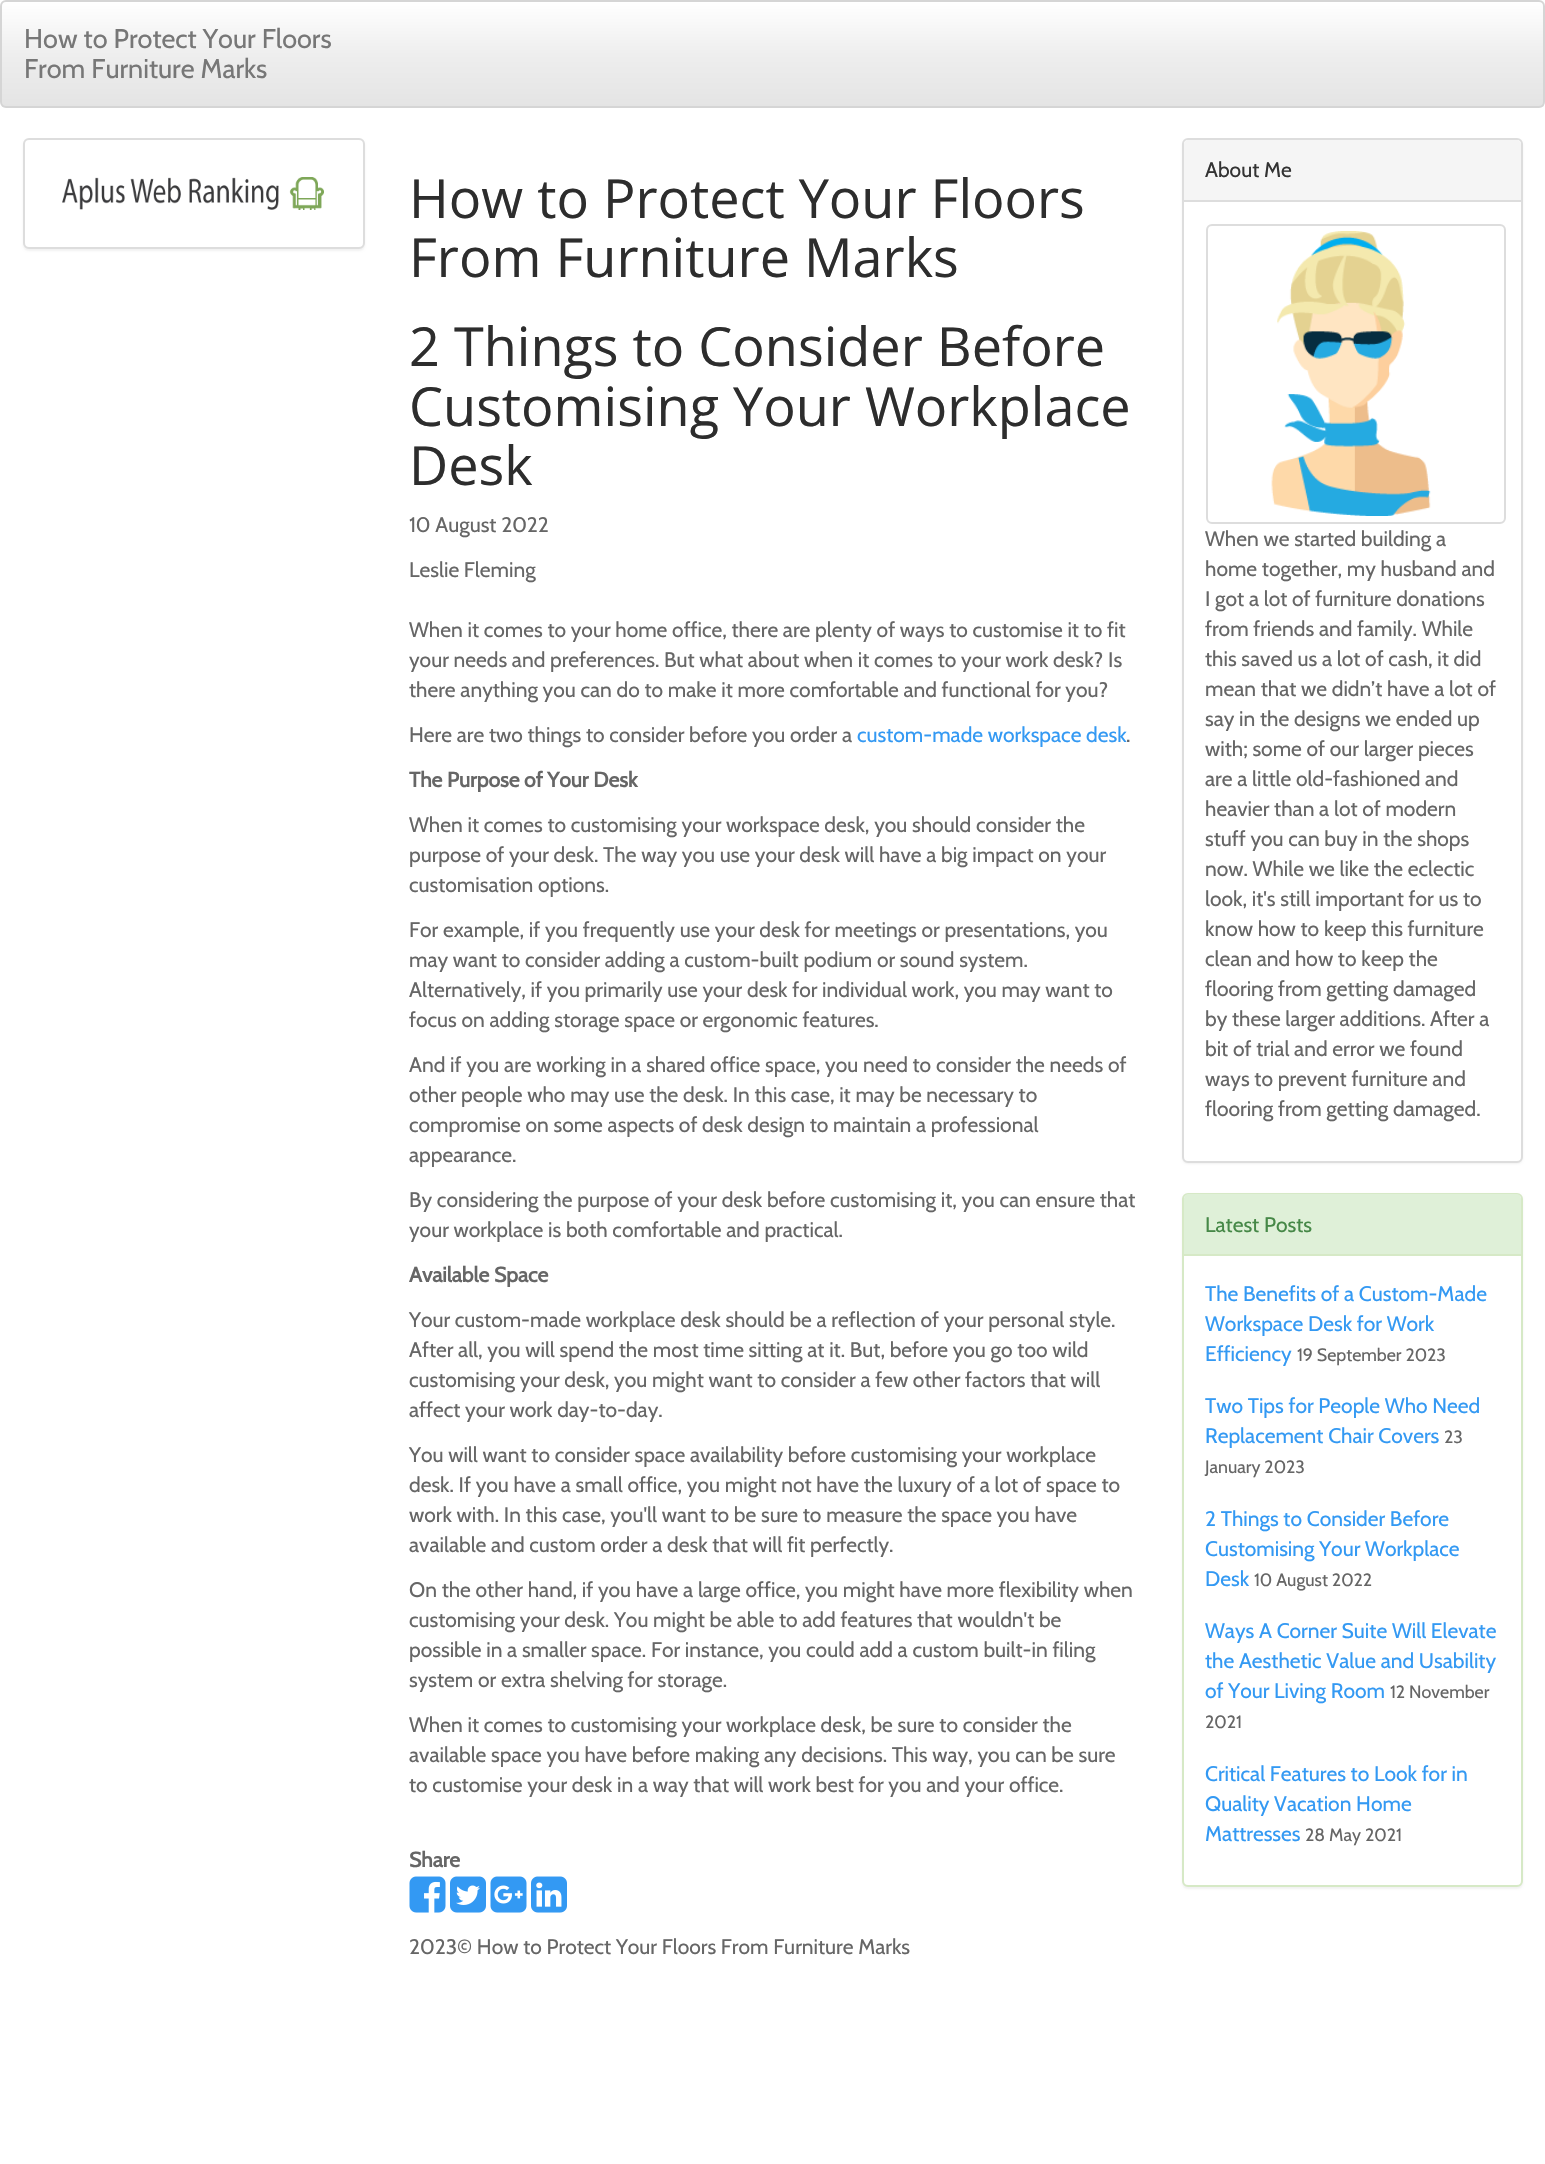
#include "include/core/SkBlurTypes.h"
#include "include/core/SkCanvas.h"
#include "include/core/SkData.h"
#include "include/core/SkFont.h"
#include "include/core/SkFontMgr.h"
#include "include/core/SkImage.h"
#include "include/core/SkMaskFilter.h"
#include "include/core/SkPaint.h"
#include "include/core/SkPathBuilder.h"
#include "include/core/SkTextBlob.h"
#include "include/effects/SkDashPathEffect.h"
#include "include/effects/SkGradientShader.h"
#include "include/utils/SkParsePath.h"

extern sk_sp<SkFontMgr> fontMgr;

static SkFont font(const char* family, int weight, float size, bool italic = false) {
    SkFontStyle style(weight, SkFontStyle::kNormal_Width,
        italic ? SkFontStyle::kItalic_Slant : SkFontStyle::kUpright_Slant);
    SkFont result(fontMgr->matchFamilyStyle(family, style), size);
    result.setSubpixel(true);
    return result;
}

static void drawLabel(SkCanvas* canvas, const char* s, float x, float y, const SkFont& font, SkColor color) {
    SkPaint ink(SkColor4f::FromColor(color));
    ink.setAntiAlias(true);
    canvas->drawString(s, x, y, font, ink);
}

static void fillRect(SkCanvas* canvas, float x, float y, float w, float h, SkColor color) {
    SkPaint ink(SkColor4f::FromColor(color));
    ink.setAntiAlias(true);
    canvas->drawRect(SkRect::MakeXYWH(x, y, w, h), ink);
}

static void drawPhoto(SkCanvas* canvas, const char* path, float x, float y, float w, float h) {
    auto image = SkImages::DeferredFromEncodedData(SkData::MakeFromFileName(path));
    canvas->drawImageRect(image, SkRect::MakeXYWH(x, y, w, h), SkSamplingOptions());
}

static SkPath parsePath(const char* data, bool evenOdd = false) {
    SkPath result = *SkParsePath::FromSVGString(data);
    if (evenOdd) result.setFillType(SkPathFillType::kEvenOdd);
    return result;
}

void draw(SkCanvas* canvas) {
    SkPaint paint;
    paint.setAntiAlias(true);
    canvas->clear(0xFFFFFFFF);
    canvas->save();
    canvas->clipPath(parsePath("M6 0H1539C1542.5 0 1545 2.5 1545 6V102C1545 105.5 1542.5 108 1539 108H6C2.5 108 0 105.5 0 102V6C0 2.5 2.5 0 6 0Z"), true);
    {
        const SkColor colors[] = {0xFFFFFFFF, 0xFFEEEEEE, 0xFFE4E4E4};
        const float stops[] = {0, 0.5f, 1};
        const SkPoint ends[] = {{773, 1.5f}, {773, 107}};
        paint.setShader(SkGradientShader::MakeLinear(ends, colors, stops, 3, SkTileMode::kClamp));
        paint.setAlpha(255);
    }
    canvas->drawRect(SkRect::MakeXYWH(2, 2, 1542, 105), paint);
    canvas->restore();
    paint.setStroke(true);
    paint.setStrokeWidth(2);
    paint.setShader(nullptr);
    paint.setColor(0xFFD5D5D5);
    canvas->drawRoundRect(SkRect::MakeXYWH(1, 1, 1543, 106), 5, 5, paint);
    SkFont font1 = font("Cabin", 400, 27);
    drawLabel(canvas, "How to Protect Your Floors", 24, 48, font1, 0xFF777777);
    drawLabel(canvas, "From Furniture Marks", 24, 78, font1, 0xFF777777);
    paint.setStroke(false);
    paint.setColor(0x0D000000);
    paint.setMaskFilter(SkMaskFilter::MakeBlur(kNormal_SkBlurStyle, 1));
    canvas->drawRoundRect(SkRect::MakeXYWH(23, 140, 342, 111), 6, 6, paint);
    paint.setMaskFilter(nullptr);
    paint.setColor(0xFFFFFFFF);
    canvas->drawRoundRect(SkRect::MakeXYWH(24, 139, 340, 109), 5, 5, paint);
    paint.setStroke(true);
    paint.setColor(0xFFDDDDDD);
    canvas->drawRoundRect(SkRect::MakeXYWH(24, 139, 340, 109), 5, 5, paint);
    drawPhoto(canvas, "assets/img1.png", 62, 177, 262, 33);
    SkFont font2 = font("Open Sans", 400, 54);
    drawLabel(canvas, "How to Protect Your Floors", 409, 218, font2, 0xFF2D2D2D);
    drawLabel(canvas, "From Furniture Marks", 409, 277, font2, 0xFF2D2D2D);
    drawLabel(canvas, "2 Things to Consider Before", 409, 366, font2, 0xFF2D2D2D);
    drawLabel(canvas, "Customising Your Workplace", 409, 426, font2, 0xFF2D2D2D);
    drawLabel(canvas, "Desk", 409, 485, font2, 0xFF2D2D2D);
    SkFont font3 = font("Cabin", 400, 21);
    drawLabel(canvas, "10 August 2022", 409, 532, font3, 0xFF666666);
    drawLabel(canvas, "Leslie Fleming", 409, 577, font3, 0xFF666666);
    drawLabel(canvas, "When it comes to your home office, there are plenty of ways to customise it to fit", 409, 637, font3, 0xFF666666);
    drawLabel(canvas, "your needs and preferences. But what about when it comes to your work desk? Is", 409, 667, font3, 0xFF666666);
    drawLabel(canvas, "there anything you can do to make it more comfortable and functional for you?", 409, 697, font3, 0xFF666666);
    drawLabel(canvas, "Here are two things to consider before you order a", 409, 742, font3, 0xFF666666);
    drawLabel(canvas, "custom-made workspace desk", 857, 742, font3, 0xFF3399F3);
    drawLabel(canvas, ".", 1126, 742, font3, 0xFF666666);
    SkFont font4 = font("Cabin", 700, 21);
    drawLabel(canvas, "The Purpose of Your Desk", 409, 787, font4, 0xFF666666);
    drawLabel(canvas, "When it comes to customising your workspace desk, you should consider the", 409, 832, font3, 0xFF666666);
    drawLabel(canvas, "purpose of your desk. The way you use your desk will have a big impact on your", 409, 862, font3, 0xFF666666);
    drawLabel(canvas, "customisation options.", 409, 892, font3, 0xFF666666);
    drawLabel(canvas, "For example, if you frequently use your desk for meetings or presentations, you", 409, 937, font3, 0xFF666666);
    drawLabel(canvas, "may want to consider adding a custom-built podium or sound system.", 409, 967, font3, 0xFF666666);
    drawLabel(canvas, "Alternatively, if you primarily use your desk for individual work, you may want to", 409, 997, font3, 0xFF666666);
    drawLabel(canvas, "focus on adding storage space or ergonomic features.", 409, 1027, font3, 0xFF666666);
    drawLabel(canvas, "And if you are working in a shared office space, you need to consider the needs of", 409, 1072, font3, 0xFF666666);
    drawLabel(canvas, "other people who may use the desk. In this case, it may be necessary to", 409, 1102, font3, 0xFF666666);
    drawLabel(canvas, "compromise on some aspects of desk design to maintain a professional", 409, 1132, font3, 0xFF666666);
    drawLabel(canvas, "appearance.", 409, 1162, font3, 0xFF666666);
    drawLabel(canvas, "By considering the purpose of your desk before customising it, you can ensure that", 409, 1207, font3, 0xFF666666);
    drawLabel(canvas, "your workplace is both comfortable and practical.", 409, 1237, font3, 0xFF666666);
    drawLabel(canvas, "Available Space", 409, 1282, font4, 0xFF666666);
    drawLabel(canvas, "Your custom-made workplace desk should be a reflection of your personal style.", 409, 1327, font3, 0xFF666666);
    drawLabel(canvas, "After all, you will spend the most time sitting at it. But, before you go too wild", 409, 1357, font3, 0xFF666666);
    drawLabel(canvas, "customising your desk, you might want to consider a few other factors that will", 409, 1387, font3, 0xFF666666);
    drawLabel(canvas, "affect your work day-to-day.", 409, 1417, font3, 0xFF666666);
    drawLabel(canvas, "You will want to consider space availability before customising your workplace", 409, 1462, font3, 0xFF666666);
    drawLabel(canvas, "desk. If you have a small office, you might not have the luxury of a lot of space to", 409, 1492, font3, 0xFF666666);
    drawLabel(canvas, "work with. In this case, you'll want to be sure to measure the space you have", 409, 1522, font3, 0xFF666666);
    drawLabel(canvas, "available and custom order a desk that will fit perfectly.", 409, 1552, font3, 0xFF666666);
    drawLabel(canvas, "On the other hand, if you have a large office, you might have more flexibility when", 409, 1597, font3, 0xFF666666);
    drawLabel(canvas, "customising your desk. You might be able to add features that wouldn't be", 409, 1627, font3, 0xFF666666);
    drawLabel(canvas, "possible in a smaller space. For instance, you could add a custom built-in filing", 409, 1657, font3, 0xFF666666);
    drawLabel(canvas, "system or extra shelving for storage.", 409, 1687, font3, 0xFF666666);
    drawLabel(canvas, "When it comes to customising your workplace desk, be sure to consider the", 409, 1732, font3, 0xFF666666);
    drawLabel(canvas, "available space you have before making any decisions. This way, you can be sure", 409, 1762, font3, 0xFF666666);
    drawLabel(canvas, "to customise your desk in a way that will work best for you and your office.", 409, 1792, font3, 0xFF666666);
    drawLabel(canvas, "Share", 409, 1867, font4, 0xFF666666);
    drawPhoto(canvas, "assets/img2.png", 409, 1876, 37, 37);
    drawPhoto(canvas, "assets/img3.png", 450, 1876, 36, 37);
    drawPhoto(canvas, "assets/img4.png", 490, 1876, 37, 37);
    drawPhoto(canvas, "assets/img5.png", 531, 1876, 36, 37);
    drawLabel(canvas, "2023© How to Protect Your Floors From Furniture Marks", 409, 1954, font3, 0xFF666666);
    paint.setStroke(false);
    paint.setColor(0x0D000000);
    paint.setMaskFilter(SkMaskFilter::MakeBlur(kNormal_SkBlurStyle, 1));
    canvas->drawRoundRect(SkRect::MakeXYWH(1182, 140, 341, 1024), 6, 6, paint);
    paint.setMaskFilter(nullptr);
    paint.setColor(0xFFFFFFFF);
    canvas->drawRoundRect(SkRect::MakeXYWH(1183, 139, 339, 1023), 5, 5, paint);
    paint.setStroke(true);
    paint.setColor(0xFFDDDDDD);
    canvas->drawRoundRect(SkRect::MakeXYWH(1183, 139, 339, 1023), 5, 5, paint);
    paint.setStroke(false);
    paint.setColor(0xFFF5F5F5);
    canvas->drawPath(parsePath("M1189 140H1516C1519 140 1521 142 1521 145V201H1184V145C1184 142 1186 140 1189 140Z"), paint);
    fillRect(canvas, 1184, 200, 337, 2, 0xFFDDDDDD);
    drawLabel(canvas, "About Me", 1205, 177, font3, 0xFF333333);
    paint.setStroke(true);
    paint.setColor(0xFFDDDDDD);
    canvas->drawRoundRect(SkRect::MakeXYWH(1207, 225, 298, 298), 5, 5, paint);
    drawPhoto(canvas, "assets/img6.png", 1271, 231, 160, 285);
    drawLabel(canvas, "When we started building a", 1205, 546, font3, 0xFF666666);
    drawLabel(canvas, "home together, my husband and", 1205, 576, font3, 0xFF666666);
    drawLabel(canvas, "I got a lot of furniture donations", 1205, 606, font3, 0xFF666666);
    drawLabel(canvas, "from friends and family. While", 1205, 636, font3, 0xFF666666);
    drawLabel(canvas, "this saved us a lot of cash, it did", 1205, 666, font3, 0xFF666666);
    drawLabel(canvas, "mean that we didn’t have a lot of", 1205, 696, font3, 0xFF666666);
    drawLabel(canvas, "say in the designs we ended up", 1205, 726, font3, 0xFF666666);
    drawLabel(canvas, "with; some of our larger pieces", 1205, 756, font3, 0xFF666666);
    drawLabel(canvas, "are a little old-fashioned and", 1205, 786, font3, 0xFF666666);
    drawLabel(canvas, "heavier than a lot of modern", 1205, 816, font3, 0xFF666666);
    drawLabel(canvas, "stuff you can buy in the shops", 1205, 846, font3, 0xFF666666);
    drawLabel(canvas, "now. While we like the eclectic", 1205, 876, font3, 0xFF666666);
    drawLabel(canvas, "look, it's still important for us to", 1205, 906, font3, 0xFF666666);
    drawLabel(canvas, "know how to keep this furniture", 1205, 936, font3, 0xFF666666);
    drawLabel(canvas, "clean and how to keep the", 1205, 966, font3, 0xFF666666);
    drawLabel(canvas, "flooring from getting damaged", 1205, 996, font3, 0xFF666666);
    drawLabel(canvas, "by these larger additions. After a", 1205, 1026, font3, 0xFF666666);
    drawLabel(canvas, "bit of trial and error we found", 1205, 1056, font3, 0xFF666666);
    drawLabel(canvas, "ways to prevent furniture and", 1205, 1086, font3, 0xFF666666);
    drawLabel(canvas, "flooring from getting damaged.", 1205, 1116, font3, 0xFF666666);
    paint.setStroke(false);
    paint.setColor(0x0D000000);
    paint.setMaskFilter(SkMaskFilter::MakeBlur(kNormal_SkBlurStyle, 1));
    canvas->drawRoundRect(SkRect::MakeXYWH(1182, 1194, 341, 695), 6, 6, paint);
    paint.setMaskFilter(nullptr);
    paint.setColor(0xFFFFFFFF);
    canvas->drawRoundRect(SkRect::MakeXYWH(1183, 1194, 339, 692), 5, 5, paint);
    paint.setStroke(true);
    paint.setColor(0xFFD6E9C6);
    canvas->drawRoundRect(SkRect::MakeXYWH(1183, 1194, 339, 692), 5, 5, paint);
    paint.setStroke(false);
    paint.setColor(0xFFDFF0D8);
    canvas->drawPath(parsePath("M1189 1194H1516C1519 1194 1521 1196 1521 1199V1256H1184V1199C1184 1196 1186 1194 1189 1194Z"), paint);
    fillRect(canvas, 1184, 1254, 337, 2, 0xFFD6E9C6);
    drawLabel(canvas, "Latest Posts", 1205, 1232, font3, 0xFF468847);
    drawLabel(canvas, "The Benefits of a Custom-Made", 1205, 1301, font3, 0xFF3399F3);
    drawLabel(canvas, "Workspace Desk for Work", 1205, 1331, font3, 0xFF3399F3);
    drawLabel(canvas, "Efficiency", 1205, 1361, font3, 0xFF3399F3);
    SkFont font5 = font("Cabin", 400, 17.75f);
    drawLabel(canvas, "19 September 2023", 1297, 1361, font5, 0xFF666666);
    drawLabel(canvas, "Two Tips for People Who Need", 1205, 1413, font3, 0xFF3399F3);
    drawLabel(canvas, "Replacement Chair Covers", 1205, 1443, font3, 0xFF3399F3);
    drawLabel(canvas, "23", 1444, 1443, font5, 0xFF666666);
    drawLabel(canvas, "January 2023", 1205, 1473, font5, 0xFF666666);
    drawLabel(canvas, "2 Things to Consider Before", 1205, 1526, font3, 0xFF3399F3);
    drawLabel(canvas, "Customising Your Workplace", 1205, 1556, font3, 0xFF3399F3);
    drawLabel(canvas, "Desk", 1205, 1586, font3, 0xFF3399F3);
    drawLabel(canvas, "10 August 2022", 1254, 1586, font5, 0xFF666666);
    drawLabel(canvas, "Ways A Corner Suite Will Elevate", 1205, 1638, font3, 0xFF3399F3);
    drawLabel(canvas, "the Aesthetic Value and Usability", 1205, 1668, font3, 0xFF3399F3);
    drawLabel(canvas, "of Your Living Room", 1205, 1698, font3, 0xFF3399F3);
    drawLabel(canvas, "12 November", 1390, 1698, font5, 0xFF666666);
    drawLabel(canvas, "2021", 1205, 1728, font5, 0xFF666666);
    drawLabel(canvas, "Critical Features to Look for in", 1205, 1781, font3, 0xFF3399F3);
    drawLabel(canvas, "Quality Vacation Home", 1205, 1811, font3, 0xFF3399F3);
    drawLabel(canvas, "Mattresses", 1205, 1841, font3, 0xFF3399F3);
    drawLabel(canvas, "28 May 2021", 1305, 1841, font5, 0xFF666666);
}
